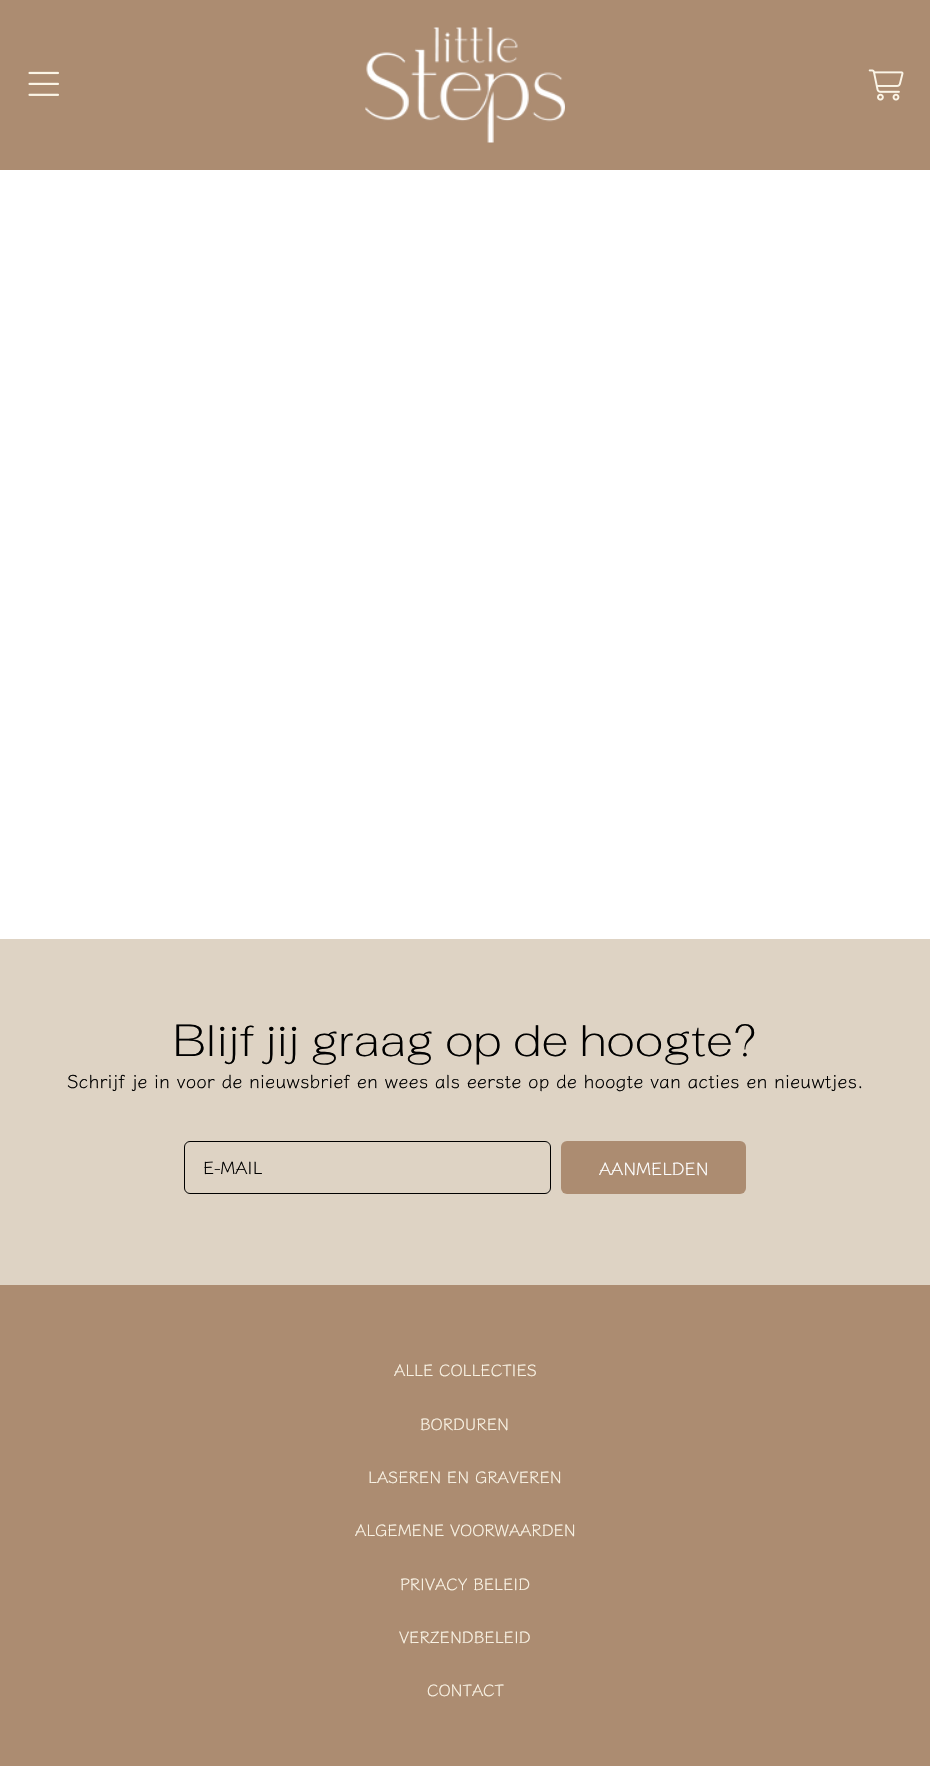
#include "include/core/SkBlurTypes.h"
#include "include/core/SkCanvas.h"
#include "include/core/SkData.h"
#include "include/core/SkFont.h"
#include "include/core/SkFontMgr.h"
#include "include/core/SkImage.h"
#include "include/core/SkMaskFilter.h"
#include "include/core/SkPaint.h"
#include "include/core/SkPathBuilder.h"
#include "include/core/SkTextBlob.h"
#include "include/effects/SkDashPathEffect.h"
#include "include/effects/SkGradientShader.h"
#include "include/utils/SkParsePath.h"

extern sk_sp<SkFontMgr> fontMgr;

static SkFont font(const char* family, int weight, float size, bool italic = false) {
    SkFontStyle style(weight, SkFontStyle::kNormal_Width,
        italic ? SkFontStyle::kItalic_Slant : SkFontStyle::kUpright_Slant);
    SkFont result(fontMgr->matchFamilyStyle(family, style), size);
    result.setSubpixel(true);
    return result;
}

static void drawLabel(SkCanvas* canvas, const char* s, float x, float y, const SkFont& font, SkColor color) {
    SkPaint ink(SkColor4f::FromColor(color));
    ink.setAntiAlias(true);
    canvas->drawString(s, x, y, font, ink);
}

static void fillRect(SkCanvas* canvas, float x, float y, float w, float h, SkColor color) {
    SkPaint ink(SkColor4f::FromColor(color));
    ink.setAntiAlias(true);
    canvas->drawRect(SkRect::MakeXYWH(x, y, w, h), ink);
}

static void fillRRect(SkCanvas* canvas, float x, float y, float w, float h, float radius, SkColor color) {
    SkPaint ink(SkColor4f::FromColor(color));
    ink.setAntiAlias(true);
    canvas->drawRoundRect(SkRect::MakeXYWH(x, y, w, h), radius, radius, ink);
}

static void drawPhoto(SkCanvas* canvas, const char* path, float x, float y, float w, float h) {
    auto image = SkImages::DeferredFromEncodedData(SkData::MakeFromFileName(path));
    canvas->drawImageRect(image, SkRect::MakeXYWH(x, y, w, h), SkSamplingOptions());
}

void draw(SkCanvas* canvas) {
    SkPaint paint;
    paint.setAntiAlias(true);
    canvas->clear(0xFFFFFFFF);
    fillRect(canvas, 0, 0, 930, 170, 0xFFAC8C71);
    drawPhoto(canvas, "assets/img1.png", 28, 71, 31, 25);
    drawPhoto(canvas, "assets/img2.png", 365, 27, 200, 116);
    drawPhoto(canvas, "assets/img3.png", 868, 69, 36, 32);
    fillRect(canvas, 0, 939, 930, 346, 0xFFDED3C4);
    SkFont font1 = font("Fahkwang", 300, 45);
    drawLabel(canvas, "Blijf jij graag op de hoogte?", 173, 1056, font1, 0xFF000000);
    SkFont font2 = font("Klee One", 400, 18.75f);
    drawLabel(canvas, "Schrijf je in voor de nieuwsbrief en wees als eerste op de hoogte van acties en nieuwtjes.", 67, 1088, font2, 0xFF000000);
    paint.setStroke(true);
    paint.setStrokeWidth(1);
    paint.setColor(0xFF000000);
    canvas->drawRoundRect(SkRect::MakeXYWH(184.5f, 1141.5f, 366, 52), 5.5f, 5.5f, paint);
    SkFont font3 = font("Klee One", 400, 17.5f);
    drawLabel(canvas, "E-MAIL", 203, 1174, font3, 0xFF000000);
    fillRRect(canvas, 561, 1141, 185, 53, 6, 0xFFAC8C71);
    drawLabel(canvas, "AANMELDEN", 599, 1175, font3, 0xFFFFFFFF);
    fillRect(canvas, 0, 1285, 930, 481, 0xFFAC8C71);
    SkFont font4 = font("Klee One", 400, 16.25f);
    drawLabel(canvas, "ALLE COLLECTIES", 394, 1376, font4, 0xFFFBF5E7);
    drawLabel(canvas, "BORDUREN", 420, 1430, font4, 0xFFFBF5E7);
    drawLabel(canvas, "LASEREN EN GRAVEREN", 368, 1483, font4, 0xFFFBF5E7);
    drawLabel(canvas, "ALGEMENE VOORWAARDEN", 355, 1536, font4, 0xFFFBF5E7);
    drawLabel(canvas, "PRIVACY BELEID", 400, 1590, font4, 0xFFFBF5E7);
    drawLabel(canvas, "VERZENDBELEID", 399, 1643, font4, 0xFFFBF5E7);
    drawLabel(canvas, "CONTACT", 427, 1696, font4, 0xFFFBF5E7);
}
